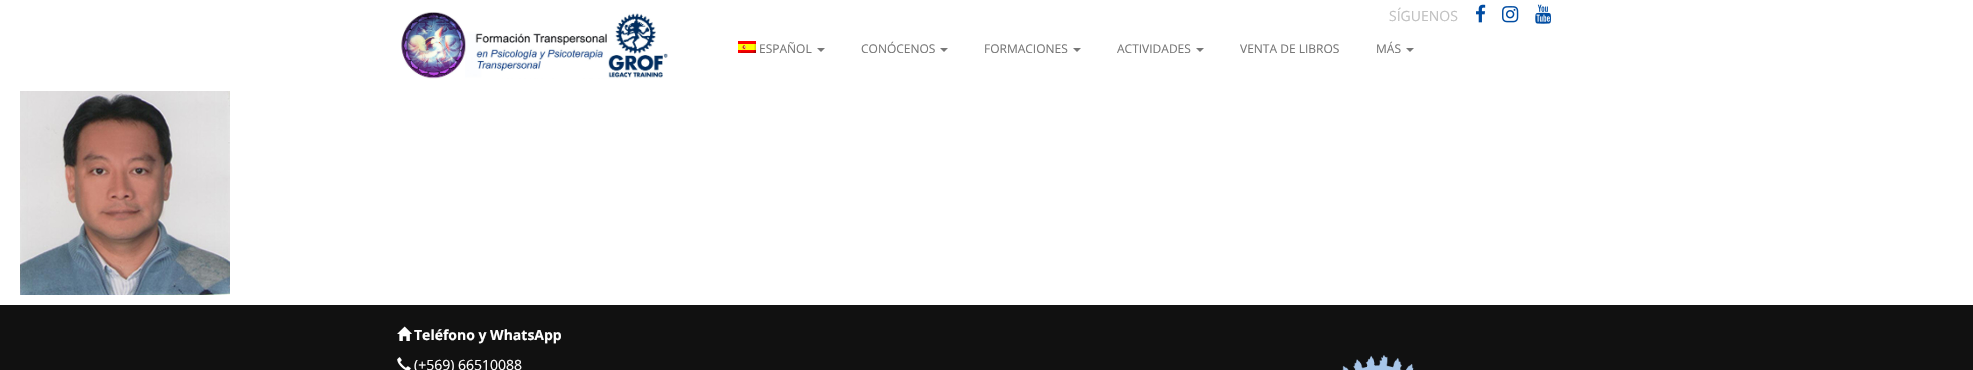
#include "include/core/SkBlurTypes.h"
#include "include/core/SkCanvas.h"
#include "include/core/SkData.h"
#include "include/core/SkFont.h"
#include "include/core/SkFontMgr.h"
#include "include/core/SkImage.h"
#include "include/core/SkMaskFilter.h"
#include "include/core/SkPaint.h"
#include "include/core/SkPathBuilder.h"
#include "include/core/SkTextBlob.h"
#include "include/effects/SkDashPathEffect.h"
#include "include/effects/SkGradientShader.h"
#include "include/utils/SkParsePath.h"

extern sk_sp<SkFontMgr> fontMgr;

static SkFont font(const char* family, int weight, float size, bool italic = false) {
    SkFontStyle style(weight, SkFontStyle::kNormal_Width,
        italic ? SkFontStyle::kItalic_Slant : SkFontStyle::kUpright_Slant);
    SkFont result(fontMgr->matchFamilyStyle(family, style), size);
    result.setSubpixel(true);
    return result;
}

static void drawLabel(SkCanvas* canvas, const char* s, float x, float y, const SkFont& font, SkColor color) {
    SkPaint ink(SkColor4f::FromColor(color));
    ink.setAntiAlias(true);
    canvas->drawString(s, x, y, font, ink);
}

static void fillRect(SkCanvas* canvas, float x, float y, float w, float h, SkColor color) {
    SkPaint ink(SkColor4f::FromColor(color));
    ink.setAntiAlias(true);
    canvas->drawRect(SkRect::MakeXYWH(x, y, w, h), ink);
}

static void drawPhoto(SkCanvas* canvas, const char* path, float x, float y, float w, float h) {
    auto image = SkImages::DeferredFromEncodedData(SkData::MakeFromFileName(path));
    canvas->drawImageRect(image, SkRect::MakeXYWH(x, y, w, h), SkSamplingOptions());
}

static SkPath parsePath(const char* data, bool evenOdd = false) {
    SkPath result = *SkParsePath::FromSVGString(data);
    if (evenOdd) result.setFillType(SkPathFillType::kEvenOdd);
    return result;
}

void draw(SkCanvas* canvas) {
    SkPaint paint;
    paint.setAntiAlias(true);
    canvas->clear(0xFFFFFFFF);
    drawPhoto(canvas, "assets/img1.png", 401, 12, 267, 67);
    SkFont font1 = font("Open Sans", 400, 14);
    drawLabel(canvas, "SÍGUENOS", 1389, 21, font1, 0xFFC1C1C1);
    drawPhoto(canvas, "assets/img2.png", 1476, 4, 10, 19);
    drawPhoto(canvas, "assets/img3.png", 1502, 6, 17, 17);
    drawPhoto(canvas, "assets/img4.png", 1535, 4, 16, 20);
    drawPhoto(canvas, "assets/img5.png", 738, 41, 18, 12);
    SkFont font2 = font("Open Sans", 400, 12);
    drawLabel(canvas, "ESPAÑOL", 759, 53, font2, 0xFF777777);
    paint.setColor(0xFF777777);
    canvas->drawPath(parsePath("M817 48H825L821 52Z"), paint);
    drawLabel(canvas, "CONÓCENOS", 861, 53, font2, 0xFF777777);
    canvas->drawPath(parsePath("M940 48H948L944 52Z"), paint);
    drawLabel(canvas, "FORMACIONES", 984, 53, font2, 0xFF777777);
    canvas->drawPath(parsePath("M1073 48H1081L1077 52Z"), paint);
    drawLabel(canvas, "ACTIVIDADES", 1117, 53, font2, 0xFF777777);
    canvas->drawPath(parsePath("M1196 48H1204L1200 52Z"), paint);
    drawLabel(canvas, "VENTA DE LIBROS", 1240, 53, font2, 0xFF777777);
    drawLabel(canvas, "MÁS", 1376, 53, font2, 0xFF777777);
    canvas->drawPath(parsePath("M1406 48H1414L1410 52Z"), paint);
    drawPhoto(canvas, "assets/img6.png", 20, 91, 210, 204);
    fillRect(canvas, 0, 305, 1973, 65, 0xFF111111);
    drawPhoto(canvas, "assets/img7.png", 397, 326, 15, 15);
    SkFont font3 = font("Open Sans", 700, 14);
    drawLabel(canvas, "Teléfono y WhatsApp", 414, 340, font3, 0xFFFFFFFF);
    drawPhoto(canvas, "assets/img8.png", 397, 357, 14, 13);
    drawLabel(canvas, "(+569) 66510088", 414, 370, font1, 0xFFFFFFFF);
    drawPhoto(canvas, "assets/img9.png", 1342, 355, 72, 15);
}
